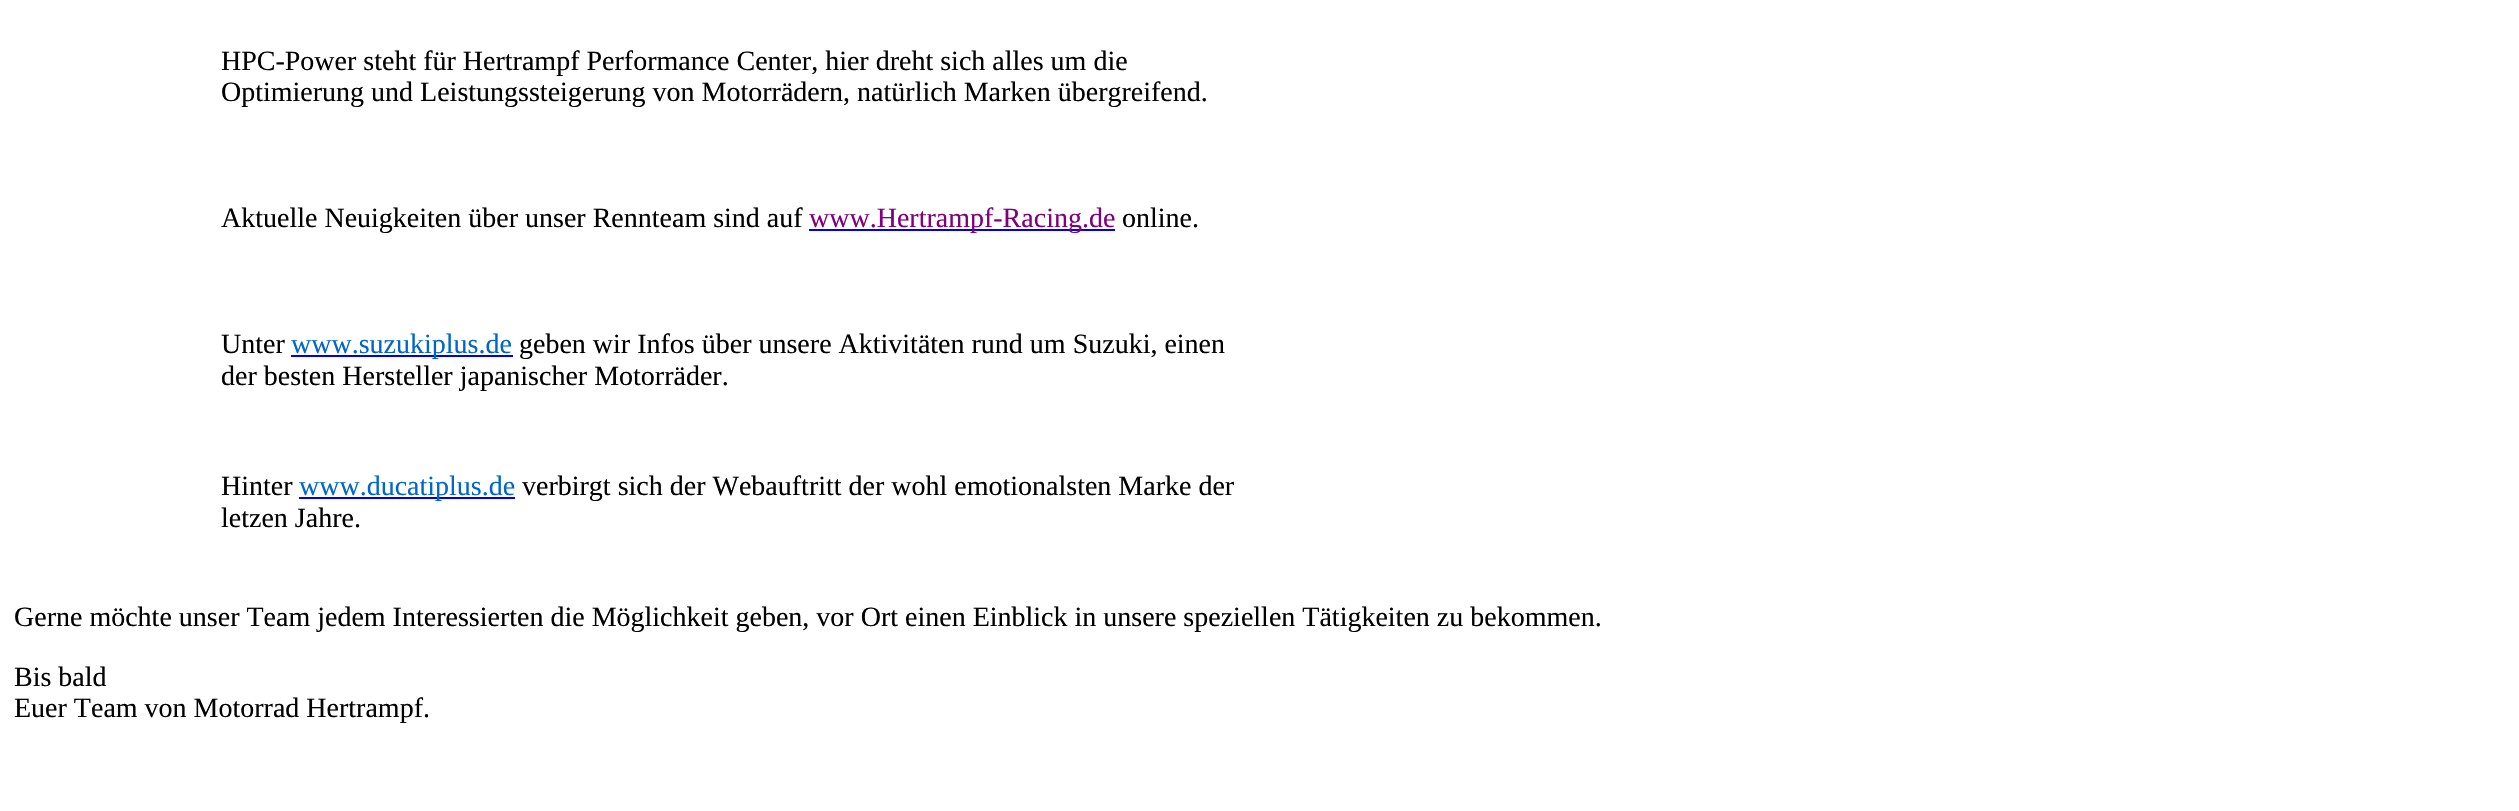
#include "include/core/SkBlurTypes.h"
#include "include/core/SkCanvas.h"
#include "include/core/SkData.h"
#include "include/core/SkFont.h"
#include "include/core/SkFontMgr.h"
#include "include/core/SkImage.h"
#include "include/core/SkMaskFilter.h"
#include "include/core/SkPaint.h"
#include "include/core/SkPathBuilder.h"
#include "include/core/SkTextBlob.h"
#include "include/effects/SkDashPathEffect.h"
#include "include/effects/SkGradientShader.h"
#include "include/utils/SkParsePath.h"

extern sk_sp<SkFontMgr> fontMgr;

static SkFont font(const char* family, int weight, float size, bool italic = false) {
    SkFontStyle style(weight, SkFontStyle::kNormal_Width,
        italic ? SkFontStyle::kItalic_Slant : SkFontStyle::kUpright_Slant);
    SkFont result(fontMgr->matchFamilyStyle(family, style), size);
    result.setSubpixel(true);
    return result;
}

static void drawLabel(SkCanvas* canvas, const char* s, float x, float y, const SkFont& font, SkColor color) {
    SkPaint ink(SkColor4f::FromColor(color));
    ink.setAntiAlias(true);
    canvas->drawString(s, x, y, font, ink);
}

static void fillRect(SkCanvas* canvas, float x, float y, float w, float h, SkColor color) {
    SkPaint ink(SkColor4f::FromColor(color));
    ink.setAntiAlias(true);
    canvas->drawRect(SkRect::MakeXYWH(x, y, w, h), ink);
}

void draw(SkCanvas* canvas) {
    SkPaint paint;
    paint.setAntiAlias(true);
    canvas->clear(0xFFFFFFFF);
    SkFont font1 = font("Liberation Serif", 400, 28);
    drawLabel(canvas, "HPC-Power steht für Hertrampf Performance Center, hier dreht sich alles um die", 221, 70, font1, 0xFF000000);
    drawLabel(canvas, "Optimierung und Leistungssteigerung von Motorrädern, natürlich Marken übergreifend.", 221, 101, font1, 0xFF000000);
    drawLabel(canvas, "Aktuelle Neuigkeiten über unser Rennteam sind auf", 221, 227, font1, 0xFF000000);
    fillRect(canvas, 809, 229, 306, 2, 0xFF0000EE);
    drawLabel(canvas, "www.Hertrampf-Racing.de", 809, 227, font1, 0xFF800080);
    drawLabel(canvas, "online.", 1122, 227, font1, 0xFF000000);
    drawLabel(canvas, "Unter", 221, 353, font1, 0xFF000000);
    fillRect(canvas, 291, 355, 222, 2, 0xFF0000EE);
    drawLabel(canvas, "www.suzukiplus.de", 291, 353, font1, 0xFF0066CC);
    drawLabel(canvas, "geben wir Infos über unsere Aktivitäten rund um Suzuki, einen", 519, 353, font1, 0xFF000000);
    drawLabel(canvas, "der besten Hersteller japanischer Motorräder.", 221, 385, font1, 0xFF000000);
    drawLabel(canvas, "Hinter", 221, 495, font1, 0xFF000000);
    fillRect(canvas, 299, 497, 216, 2, 0xFF0000EE);
    drawLabel(canvas, "www.ducatiplus.de", 299, 495, font1, 0xFF0066CC);
    drawLabel(canvas, "verbirgt sich der Webauftritt der wohl emotionalsten Marke der", 522, 495, font1, 0xFF000000);
    drawLabel(canvas, "letzen Jahre.", 221, 527, font1, 0xFF000000);
    drawLabel(canvas, "Gerne möchte unser Team jedem Interessierten die Möglichkeit geben, vor Ort einen Einblick in unsere speziellen Tätigkeiten zu bekommen.", 14, 626, font1, 0xFF000000);
    drawLabel(canvas, "Bis bald", 14, 686, font1, 0xFF000000);
    drawLabel(canvas, "Euer Team von Motorrad Hertrampf.", 14, 717, font1, 0xFF000000);
}
